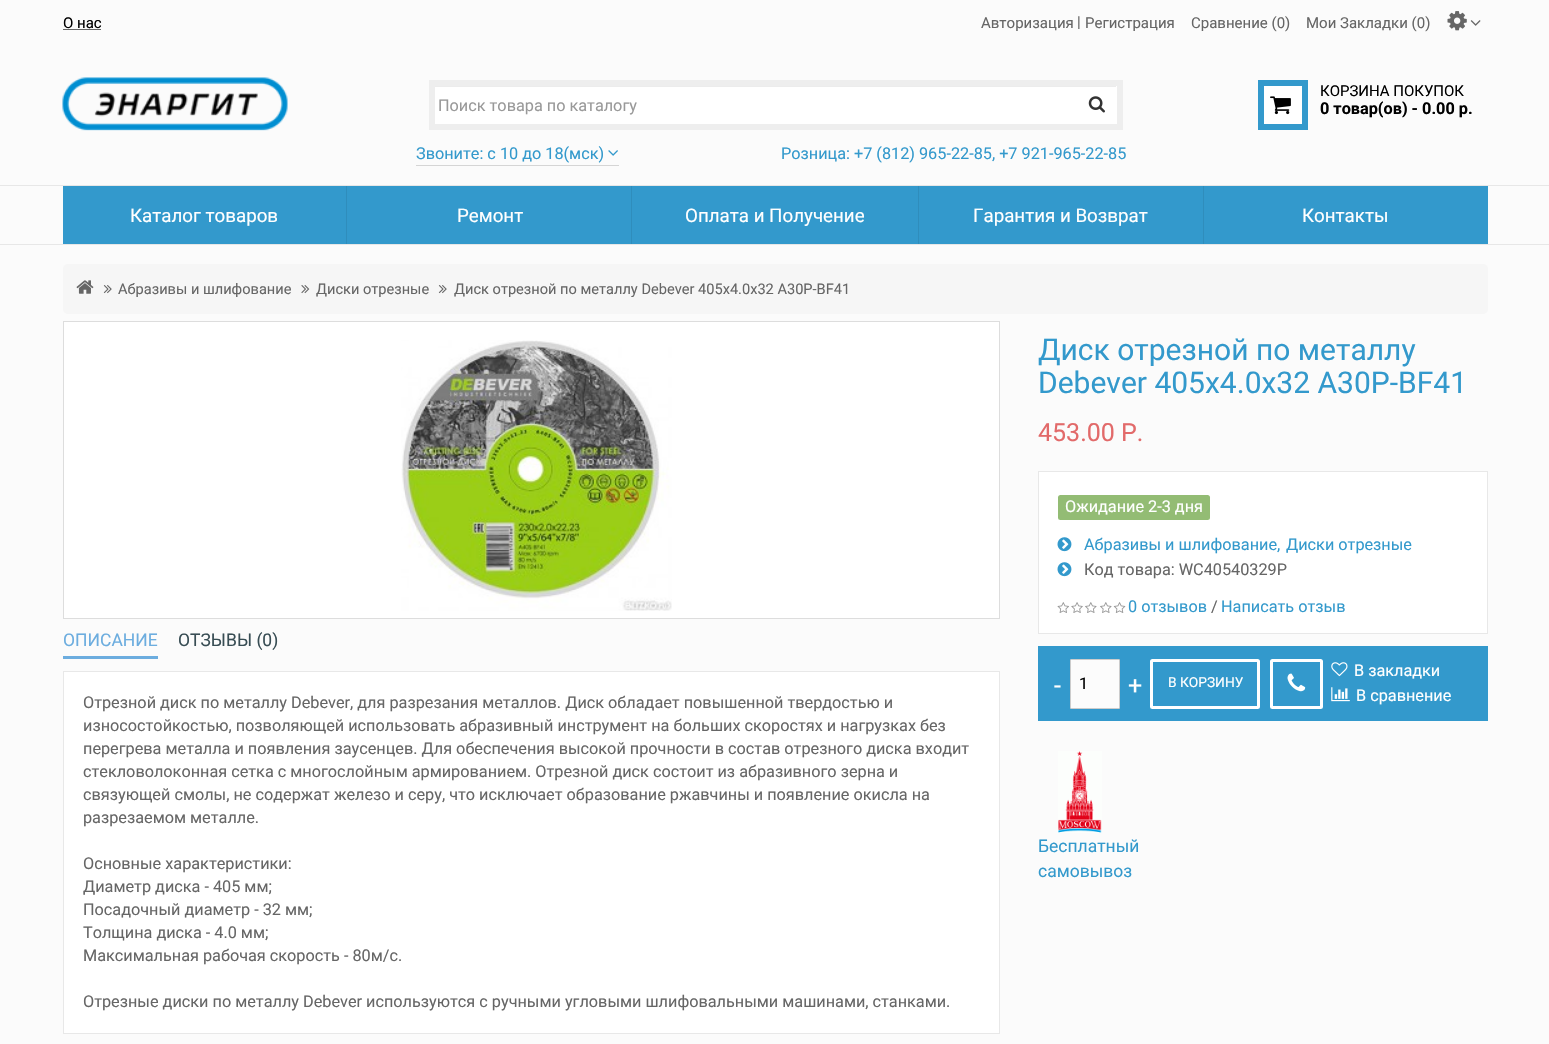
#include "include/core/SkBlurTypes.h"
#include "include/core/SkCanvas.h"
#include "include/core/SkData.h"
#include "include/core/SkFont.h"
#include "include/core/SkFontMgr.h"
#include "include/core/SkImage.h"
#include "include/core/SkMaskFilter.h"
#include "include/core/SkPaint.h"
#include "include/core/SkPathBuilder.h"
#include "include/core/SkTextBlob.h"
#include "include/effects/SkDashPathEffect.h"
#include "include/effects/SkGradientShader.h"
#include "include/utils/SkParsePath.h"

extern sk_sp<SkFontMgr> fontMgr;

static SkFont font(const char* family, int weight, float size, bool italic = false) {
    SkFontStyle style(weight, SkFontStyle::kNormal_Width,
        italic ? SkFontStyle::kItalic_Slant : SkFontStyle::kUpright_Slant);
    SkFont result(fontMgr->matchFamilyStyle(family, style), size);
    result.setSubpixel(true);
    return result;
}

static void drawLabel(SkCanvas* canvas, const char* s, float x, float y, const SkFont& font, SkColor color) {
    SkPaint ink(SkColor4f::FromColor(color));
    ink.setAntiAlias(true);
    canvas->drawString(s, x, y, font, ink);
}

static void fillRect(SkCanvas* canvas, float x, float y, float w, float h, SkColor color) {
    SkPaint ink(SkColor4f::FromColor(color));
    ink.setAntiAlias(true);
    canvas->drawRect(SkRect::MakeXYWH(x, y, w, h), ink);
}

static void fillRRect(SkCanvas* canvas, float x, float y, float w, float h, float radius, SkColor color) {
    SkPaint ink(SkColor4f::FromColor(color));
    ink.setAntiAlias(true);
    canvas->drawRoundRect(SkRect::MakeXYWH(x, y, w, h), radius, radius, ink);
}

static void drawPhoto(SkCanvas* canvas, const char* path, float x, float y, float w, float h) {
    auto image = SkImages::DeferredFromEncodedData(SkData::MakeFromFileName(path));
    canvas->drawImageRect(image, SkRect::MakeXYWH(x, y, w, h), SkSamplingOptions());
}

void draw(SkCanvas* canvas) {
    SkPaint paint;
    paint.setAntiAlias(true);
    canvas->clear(0xFFFBFBFB);
    SkFont font1 = font("Roboto", 400, 15);
    drawLabel(canvas, "О нас", 63, 28, font1, 0xFF000000);
    fillRect(canvas, 63, 29, 38, 1, 0xFF666666);
    drawLabel(canvas, "Авторизация", 981, 28, font1, 0xFF666666);
    drawLabel(canvas, "|", 1077, 27, font1, 0xFF666666);
    drawLabel(canvas, "Регистрация", 1085, 28, font1, 0xFF666666);
    drawLabel(canvas, "Сравнение (0)", 1191, 28, font1, 0xFF666666);
    drawLabel(canvas, "Мои Закладки (0)", 1306, 28, font1, 0xFF666666);
    drawPhoto(canvas, "assets/img1.png", 1447, 11, 20, 20);
    drawPhoto(canvas, "assets/img2.png", 1470, 20, 11, 6);
    drawPhoto(canvas, "assets/img3.png", 62, 77, 226, 54);
    fillRect(canvas, 435, 86, 682, 38, 0xFFFFFFFF);
    fillRect(canvas, 435, 86, 681, 1, 0xFFECECEC);
    paint.setStroke(true);
    paint.setStrokeWidth(6);
    paint.setColor(0xFFEEEEEE);
    canvas->drawRect(SkRect::MakeXYWH(432, 83, 688, 44), paint);
    SkFont font2 = font("Roboto", 400, 16.25f);
    drawLabel(canvas, "Поиск товара по каталогу", 438, 111, font2, 0xFF999999);
    drawPhoto(canvas, "assets/img4.png", 1088, 96, 17, 17);
    fillRect(canvas, 416, 165, 203, 1, 0xFFD5D5D5);
    drawLabel(canvas, "Звоните: с 10 до 18(мск)", 416, 159, font2, 0xFF3399CC);
    drawPhoto(canvas, "assets/img5.png", 608, 150, 10, 6);
    drawLabel(canvas, "Розница: +7 (812) 965-22-85, +7 921-965-22-85", 781, 159, font2, 0xFF3399CC);
    paint.setStroke(false);
    paint.setColor(0xFFFFFFFF);
    canvas->drawRect(SkRect::MakeXYWH(1261, 83, 44, 44), paint);
    paint.setStroke(true);
    paint.setColor(0xFF3399CC);
    canvas->drawRect(SkRect::MakeXYWH(1261, 83, 44, 44), paint);
    drawPhoto(canvas, "assets/img6.png", 1270, 96, 21, 19);
    drawLabel(canvas, "КОРЗИНА ПОКУПОК", 1320, 96, font1, 0xFF000000);
    SkFont font3 = font("Roboto", 700, 16.25f);
    drawLabel(canvas, "0 товар(ов) - 0.00 р.", 1320, 114, font3, 0xFF000000);
    fillRect(canvas, 0, 185, 1549, 1, 0xFFE7E7E7);
    fillRect(canvas, 0, 244, 1549, 1, 0xFFE7E7E7);
    fillRect(canvas, 63, 186, 1425, 58, 0xFF3399CC);
    SkFont font4 = font("Roboto", 400, 18.75f);
    drawLabel(canvas, "Каталог товаров", 130, 222, font4, 0xFFFFFFFF);
    fillRect(canvas, 346, 186, 1, 58, 0xFF2F8DBC);
    drawLabel(canvas, "Ремонт", 457, 222, font4, 0xFFFFFFFF);
    fillRect(canvas, 631, 186, 1, 58, 0xFF2F8DBC);
    drawLabel(canvas, "Оплата и Получение", 685, 222, font4, 0xFFFFFFFF);
    fillRect(canvas, 918, 186, 1, 58, 0xFF2F8DBC);
    drawLabel(canvas, "Гарантия и Возврат", 973, 222, font4, 0xFFFFFFFF);
    fillRect(canvas, 1203, 186, 1, 58, 0xFF2F8DBC);
    drawLabel(canvas, "Контакты", 1302, 222, font4, 0xFFFFFFFF);
    fillRRect(canvas, 63, 264, 1425, 50, 5, 0xFFF6F6F6);
    drawPhoto(canvas, "assets/img7.png", 76, 280, 18, 14);
    drawPhoto(canvas, "assets/img8.png", 103, 285, 9, 9);
    SkFont font5 = font("Roboto", 400, 14.6f);
    drawLabel(canvas, "Абразивы и шлифование", 118, 294, font5, 0xFF666666);
    drawPhoto(canvas, "assets/img9.png", 301, 285, 9, 9);
    drawLabel(canvas, "Диски отрезные", 316, 294, font5, 0xFF666666);
    drawPhoto(canvas, "assets/img8.png", 438, 285, 9, 9);
    drawLabel(canvas, "Диск отрезной по металлу Debever 405х4.0х32 A30P-BF41", 454, 294, font5, 0xFF666666);
    paint.setStroke(false);
    paint.setColor(0xFFFFFFFF);
    canvas->drawRect(SkRect::MakeXYWH(63.5f, 321.5f, 936, 297), paint);
    paint.setStroke(true);
    paint.setStrokeWidth(1);
    paint.setColor(0xFFDDDDDD);
    canvas->drawRect(SkRect::MakeXYWH(63.5f, 321.5f, 936, 297), paint);
    drawPhoto(canvas, "assets/img10.png", 401, 340, 271, 271);
    fillRect(canvas, 63, 656, 95, 3, 0xFF6CADDF);
    SkFont font6 = font("Roboto", 400, 17.5f);
    drawLabel(canvas, "ОПИСАНИЕ", 63, 646, font6, 0xFF6CADDF);
    drawLabel(canvas, "ОТЗЫВЫ (0)", 178, 646, font6, 0xFF384D54);
    paint.setStroke(false);
    paint.setColor(0xFFFFFFFF);
    canvas->drawRect(SkRect::MakeXYWH(63.5f, 671.5f, 936, 362), paint);
    paint.setStroke(true);
    paint.setColor(0xFFE8E8E8);
    canvas->drawRect(SkRect::MakeXYWH(63.5f, 671.5f, 936, 362), paint);
    drawLabel(canvas, "Отрезной диск по металлу Debever, для разрезания металлов. Диск обладает повышенной твердостью и", 83, 708, font2, 0xFF666666);
    drawLabel(canvas, "износостойкостью, позволяющей использовать абразивный инструмент на больших скоростях и нагрузках без", 83, 731, font2, 0xFF666666);
    drawLabel(canvas, "перегрева металла и появления заусенцев. Для обеспечения высокой прочности в состав отрезного диска входит", 83, 754, font2, 0xFF666666);
    drawLabel(canvas, "стекловолоконная сетка с многослойным армированием. Отрезной диск состоит из абразивного зерна и", 83, 777, font2, 0xFF666666);
    drawLabel(canvas, "связующей смолы, не содержат железо и серу, что исключает образование ржавчины и появление окисла на", 83, 800, font2, 0xFF666666);
    drawLabel(canvas, "разрезаемом металле.", 83, 823, font2, 0xFF666666);
    drawLabel(canvas, "Основные характеристики:", 83, 869, font2, 0xFF666666);
    drawLabel(canvas, "Диаметр диска - 405 мм;", 83, 892, font2, 0xFF666666);
    drawLabel(canvas, "Посадочный диаметр - 32 мм;", 83, 915, font2, 0xFF666666);
    drawLabel(canvas, "Толщина диска - 4.0 мм;", 83, 938, font2, 0xFF666666);
    drawLabel(canvas, "Максимальная рабочая скорость - 80м/с.", 83, 961, font2, 0xFF666666);
    drawLabel(canvas, "Отрезные диски по металлу Debever используются с ручными угловыми шлифовальными машинами, станками.", 83, 1007, font2, 0xFF666666);
    SkFont font7 = font("Roboto", 400, 30);
    drawLabel(canvas, "Диск отрезной по металлу", 1038, 360, font7, 0xFF3399CC);
    drawLabel(canvas, "Debever 405х4.0х32 A30P-BF41", 1038, 393, font7, 0xFF3399CC);
    SkFont font8 = font("Roboto", 400, 25);
    drawLabel(canvas, "453.00 Р.", 1038, 441, font8, 0xFFE26A6A);
    paint.setStroke(false);
    paint.setColor(0xFFFFFFFF);
    canvas->drawRect(SkRect::MakeXYWH(1038.5f, 471.5f, 449, 162), paint);
    paint.setStroke(true);
    paint.setColor(0xFFE8E8E8);
    canvas->drawRect(SkRect::MakeXYWH(1038.5f, 471.5f, 449, 162), paint);
    fillRRect(canvas, 1058, 495, 152, 25, 2.5f, 0xFF93BC74);
    drawLabel(canvas, "Ожидание 2-3 дня", 1065, 512, font2, 0xFFFFFFFF);
    drawPhoto(canvas, "assets/img11.png", 1057, 537, 15, 15);
    drawLabel(canvas, "Абразивы и шлифование,", 1084, 550, font2, 0xFF3399CC);
    drawLabel(canvas, "Диски отрезные", 1286, 550, font2, 0xFF3399CC);
    drawPhoto(canvas, "assets/img11.png", 1057, 562, 15, 15);
    drawLabel(canvas, "Код товара: WC40540329P", 1084, 575, font2, 0xFF666666);
    drawPhoto(canvas, "assets/img12.png", 1057, 602, 12, 11);
    drawPhoto(canvas, "assets/img13.png", 1071, 602, 12, 11);
    drawPhoto(canvas, "assets/img14.png", 1085, 602, 12, 11);
    drawPhoto(canvas, "assets/img14.png", 1100, 602, 12, 11);
    drawPhoto(canvas, "assets/img15.png", 1113, 602, 13, 11);
    drawLabel(canvas, "0 отзывов", 1128, 612, font2, 0xFF3399CC);
    drawLabel(canvas, "/", 1211, 612, font2, 0xFF666666);
    drawLabel(canvas, "Написать отзыв", 1221, 612, font2, 0xFF3399CC);
    fillRect(canvas, 1038, 646, 450, 75, 0xFF3399CC);
    drawLabel(canvas, "-", 1054, 694, font8, 0xFFFFFFFF);
    paint.setStroke(false);
    paint.setColor(0xFFFCFCFC);
    canvas->drawRoundRect(SkRect::MakeXYWH(1070.5f, 659.5f, 49, 49), 0.5f, 0.5f, paint);
    paint.setStroke(true);
    paint.setColor(0xFFCCCCCC);
    canvas->drawRoundRect(SkRect::MakeXYWH(1070.5f, 659.5f, 49, 49), 0.5f, 0.5f, paint);
    drawLabel(canvas, "1", 1079, 689, font2, 0xFF000000);
    drawLabel(canvas, "+", 1128, 694, font8, 0xFFFFFFFF);
    paint.setStrokeWidth(3);
    paint.setColor(0xFFFFFFFF);
    canvas->drawRoundRect(SkRect::MakeXYWH(1151.5f, 660.5f, 107, 47), 1, 1, paint);
    SkFont font9 = font("Roboto", 400, 13.75f);
    drawLabel(canvas, "В КОРЗИНУ", 1168, 687, font9, 0xFFFFFFFF);
    canvas->drawRoundRect(SkRect::MakeXYWH(1271.5f, 660.5f, 50, 47), 1, 1, paint);
    drawPhoto(canvas, "assets/img16.png", 1287, 673, 19, 19);
    drawPhoto(canvas, "assets/img17.png", 1331, 662, 17, 15);
    drawLabel(canvas, "В закладки", 1354, 676, font2, 0xFFFFFFFF);
    drawPhoto(canvas, "assets/img18.png", 1331, 687, 19, 15);
    drawLabel(canvas, "В сравнение", 1356, 701, font2, 0xFFFFFFFF);
    drawPhoto(canvas, "assets/img19.png", 1058, 751, 44, 82);
    drawLabel(canvas, "Бесплатный", 1038, 852, font6, 0xFF3399CC);
    drawLabel(canvas, "самовывоз", 1038, 877, font6, 0xFF3399CC);
}
